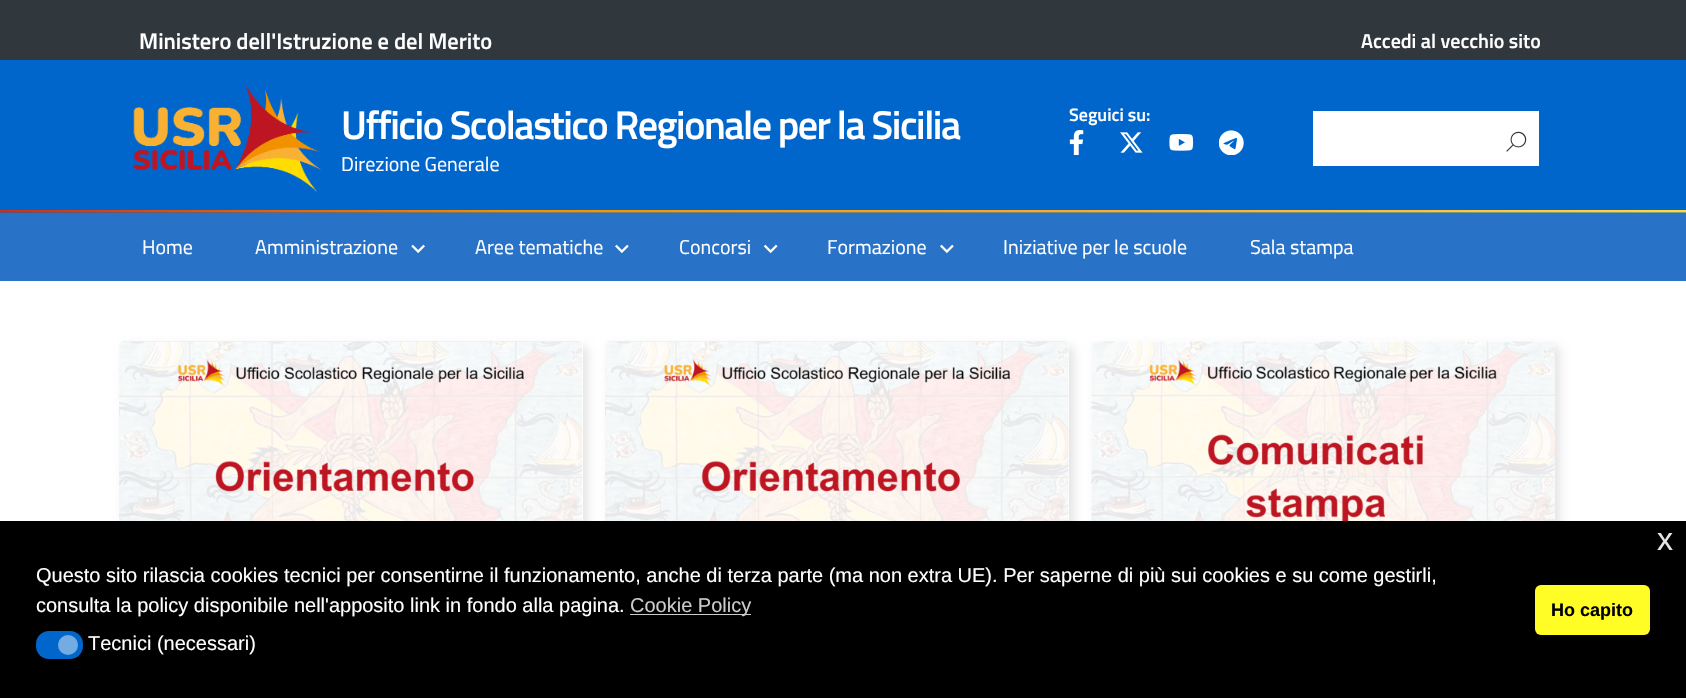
#include "include/core/SkBlurTypes.h"
#include "include/core/SkCanvas.h"
#include "include/core/SkData.h"
#include "include/core/SkFont.h"
#include "include/core/SkFontMgr.h"
#include "include/core/SkImage.h"
#include "include/core/SkMaskFilter.h"
#include "include/core/SkPaint.h"
#include "include/core/SkPathBuilder.h"
#include "include/core/SkTextBlob.h"
#include "include/effects/SkDashPathEffect.h"
#include "include/effects/SkGradientShader.h"
#include "include/utils/SkParsePath.h"

extern sk_sp<SkFontMgr> fontMgr;

static SkFont font(const char* family, int weight, float size, bool italic = false) {
    SkFontStyle style(weight, SkFontStyle::kNormal_Width,
        italic ? SkFontStyle::kItalic_Slant : SkFontStyle::kUpright_Slant);
    SkFont result(fontMgr->matchFamilyStyle(family, style), size);
    result.setSubpixel(true);
    return result;
}

static void drawLabel(SkCanvas* canvas, const char* s, float x, float y, const SkFont& font, SkColor color) {
    SkPaint ink(SkColor4f::FromColor(color));
    ink.setAntiAlias(true);
    canvas->drawString(s, x, y, font, ink);
}

static void drawTracked(SkCanvas* canvas, const char* s, float x, float y, const SkFont& font, const SkPaint& ink, float letter, float word) {
    std::vector<SkGlyphID> glyphs(font.countText(s, strlen(s), SkTextEncoding::kUTF8));
    std::vector<float> xs(glyphs.size());
    font.textToGlyphs(s, strlen(s), SkTextEncoding::kUTF8, glyphs);
    font.getXPos(glyphs, xs, x);
    float extra = 0;
    for (size_t i = 0; i < glyphs.size(); i++) {
        xs[i] += extra;
        extra += letter + word * (glyphs[i] == font.unicharToGlyph(' '));
    }
    canvas->drawTextBlob(SkTextBlob::MakeFromPosHGlyphs(glyphs, xs, y, font), 0, 0, ink);
}

static void fillRect(SkCanvas* canvas, float x, float y, float w, float h, SkColor color) {
    SkPaint ink(SkColor4f::FromColor(color));
    ink.setAntiAlias(true);
    canvas->drawRect(SkRect::MakeXYWH(x, y, w, h), ink);
}

static void fillRRect(SkCanvas* canvas, float x, float y, float w, float h, float radius, SkColor color) {
    SkPaint ink(SkColor4f::FromColor(color));
    ink.setAntiAlias(true);
    canvas->drawRoundRect(SkRect::MakeXYWH(x, y, w, h), radius, radius, ink);
}

static void drawPhoto(SkCanvas* canvas, const char* path, float x, float y, float w, float h) {
    auto image = SkImages::DeferredFromEncodedData(SkData::MakeFromFileName(path));
    canvas->drawImageRect(image, SkRect::MakeXYWH(x, y, w, h), SkSamplingOptions());
}

void draw(SkCanvas* canvas) {
    SkPaint paint;
    paint.setAntiAlias(true);
    canvas->clear(0xFFFFFFFF);
    fillRect(canvas, 0, 60, 1686, 153, 0xFF0066CC);
    fillRect(canvas, 0, 0, 1686, 60, 0xFF30373D);
    SkFont font1 = font("Titillium Web", 600, 22.5f);
    drawLabel(canvas, "Ministero dell'Istruzione e del Merito", 139, 49, font1, 0xFFFFFFFF);
    SkFont font2 = font("Titillium Web", 600, 20);
    drawLabel(canvas, "Accedi al vecchio sito", 1361, 48, font2, 0xFFFFFFFF);
    drawPhoto(canvas, "assets/img1.png", 133, 85, 188, 107);
    SkFont font3 = font("Titillium Web", 600, 40);
    paint.setColor(0xFFFFFFFF);
    drawTracked(canvas, "Ufficio Scolastico Regionale per la Sicilia", 341, 139, font3, paint, -1.5f, 0);
    SkFont font4 = font("Titillium Web", 400, 20);
    drawLabel(canvas, "Direzione Generale", 341, 171, font4, 0xFFFFFFFF);
    SkFont font5 = font("Titillium Web", 600, 18);
    drawLabel(canvas, "Seguici su:", 1069, 121, font5, 0xFFFFFFFF);
    drawPhoto(canvas, "assets/img2.png", 1069, 130, 15, 25);
    drawPhoto(canvas, "assets/img3.png", 1120, 132, 23, 21);
    drawPhoto(canvas, "assets/img4.png", 1169, 134, 25, 17);
    drawPhoto(canvas, "assets/img5.png", 1219, 130, 25, 25);
    fillRect(canvas, 1313, 111, 226, 55, 0xFFFFFFFF);
    drawPhoto(canvas, "assets/img6.png", 1506, 131, 21, 21);
    drawPhoto(canvas, "assets/img7.png", 0, 210, 1686, 3);
    fillRect(canvas, 0, 213, 1686, 68, 0xFF2872C7);
    drawLabel(canvas, "Home", 142, 254, font4, 0xFFFFFFFF);
    drawLabel(canvas, "Amministrazione", 255, 254, font4, 0xFFFFFFFF);
    drawPhoto(canvas, "assets/img8.png", 411, 244, 14, 10);
    drawLabel(canvas, "Aree tematiche", 475, 254, font4, 0xFFFFFFFF);
    drawPhoto(canvas, "assets/img9.png", 615, 244, 14, 10);
    drawLabel(canvas, "Concorsi", 679, 254, font4, 0xFFFFFFFF);
    drawPhoto(canvas, "assets/img10.png", 763, 244, 15, 10);
    drawLabel(canvas, "Formazione", 827, 254, font4, 0xFFFFFFFF);
    drawPhoto(canvas, "assets/img9.png", 940, 244, 14, 10);
    drawLabel(canvas, "Iniziative per le scuole", 1003, 254, font4, 0xFFFFFFFF);
    drawLabel(canvas, "Sala stampa", 1250, 254, font4, 0xFFFFFFFF);
    paint.setColor(0x1A000000);
    paint.setMaskFilter(SkMaskFilter::MakeBlur(kNormal_SkBlurStyle, 5));
    canvas->drawRoundRect(SkRect::MakeXYWH(124, 346, 464, 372), 5, 5, paint);
    paint.setMaskFilter(nullptr);
    fillRRect(canvas, 119, 341, 464, 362, 5, 0xFFFFFFFF);
    drawPhoto(canvas, "assets/img11.png", 119, 341, 464, 180);
    paint.setMaskFilter(SkMaskFilter::MakeBlur(kNormal_SkBlurStyle, 5));
    canvas->drawRoundRect(SkRect::MakeXYWH(610, 346, 464, 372), 5, 5, paint);
    paint.setMaskFilter(nullptr);
    fillRRect(canvas, 605, 341, 464, 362, 5, 0xFFFFFFFF);
    drawPhoto(canvas, "assets/img12.png", 605, 341, 464, 180);
    paint.setMaskFilter(SkMaskFilter::MakeBlur(kNormal_SkBlurStyle, 5));
    canvas->drawRoundRect(SkRect::MakeXYWH(1096, 346, 464, 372), 5, 5, paint);
    paint.setMaskFilter(nullptr);
    fillRRect(canvas, 1091, 341, 464, 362, 5, 0xFFFFFFFF);
    drawPhoto(canvas, "assets/img13.png", 1091, 341, 464, 180);
    fillRect(canvas, 0, 521, 1686, 177, 0xFF000000);
    SkFont font6 = font("Liberation Sans", 400, 32);
    drawLabel(canvas, "x", 1657, 550, font6, 0xFFE6E6E6);
    SkFont font7 = font("Liberation Sans", 400, 20);
    drawLabel(canvas, "Questo sito rilascia cookies tecnici per consentirne il funzionamento, anche di terza parte (ma non extra UE). Per saperne di più sui cookies e su come gestirli,", 36, 582, font7, 0xFFFFFFFF);
    drawLabel(canvas, "consulta la policy disponibile nell'apposito link in fondo alla pagina.", 36, 612, font7, 0xFFFFFFFF);
    fillRect(canvas, 630, 614, 121, 1, 0xFFCCCCCC);
    drawLabel(canvas, "Cookie Policy", 630, 612, font7, 0xFFCCCCCC);
    fillRRect(canvas, 36, 631, 47, 28, 13, 0xFF0066CC);
    paint.setColor(0xFF73ABE3);
    canvas->drawCircle(68, 645, 10, paint);
    drawLabel(canvas, "Tecnici (necessari)", 88, 650, font7, 0xFFFFFFFF);
    fillRRect(canvas, 1535, 585, 115, 50, 6, 0xFFFFFC26);
    SkFont font8 = font("Liberation Sans", 700, 18);
    drawLabel(canvas, "Ho capito", 1551, 616, font8, 0xFF000000);
}
